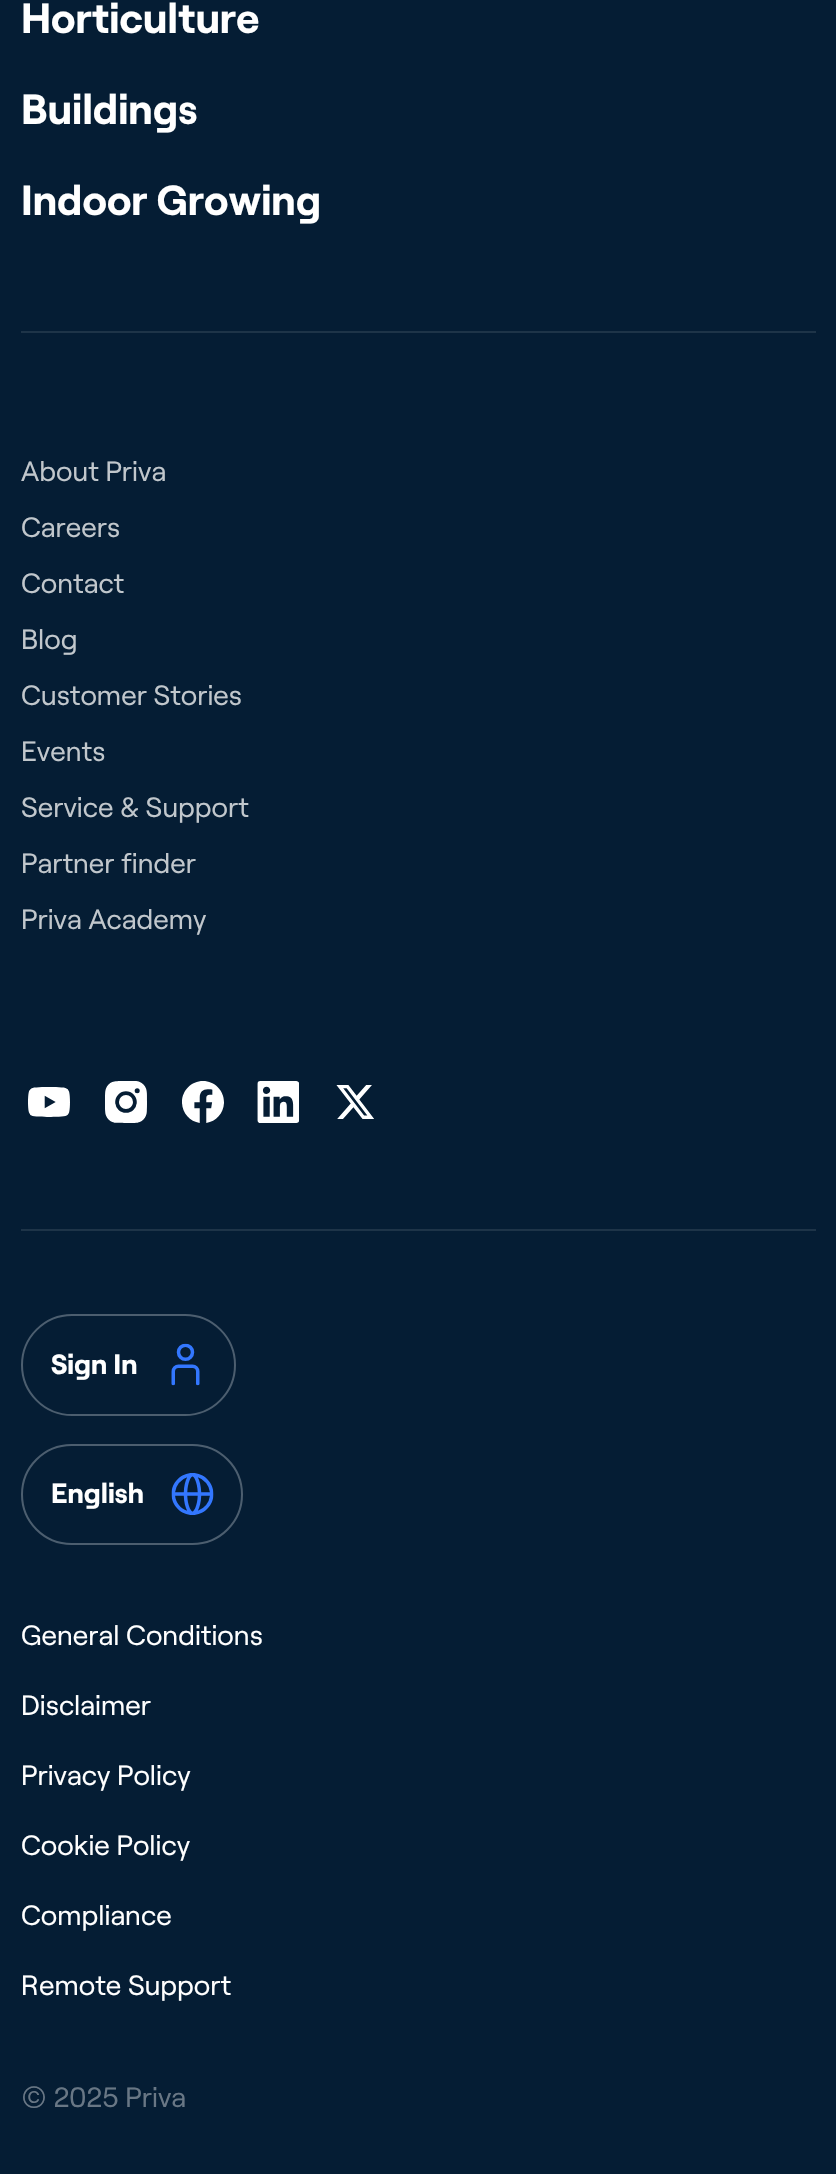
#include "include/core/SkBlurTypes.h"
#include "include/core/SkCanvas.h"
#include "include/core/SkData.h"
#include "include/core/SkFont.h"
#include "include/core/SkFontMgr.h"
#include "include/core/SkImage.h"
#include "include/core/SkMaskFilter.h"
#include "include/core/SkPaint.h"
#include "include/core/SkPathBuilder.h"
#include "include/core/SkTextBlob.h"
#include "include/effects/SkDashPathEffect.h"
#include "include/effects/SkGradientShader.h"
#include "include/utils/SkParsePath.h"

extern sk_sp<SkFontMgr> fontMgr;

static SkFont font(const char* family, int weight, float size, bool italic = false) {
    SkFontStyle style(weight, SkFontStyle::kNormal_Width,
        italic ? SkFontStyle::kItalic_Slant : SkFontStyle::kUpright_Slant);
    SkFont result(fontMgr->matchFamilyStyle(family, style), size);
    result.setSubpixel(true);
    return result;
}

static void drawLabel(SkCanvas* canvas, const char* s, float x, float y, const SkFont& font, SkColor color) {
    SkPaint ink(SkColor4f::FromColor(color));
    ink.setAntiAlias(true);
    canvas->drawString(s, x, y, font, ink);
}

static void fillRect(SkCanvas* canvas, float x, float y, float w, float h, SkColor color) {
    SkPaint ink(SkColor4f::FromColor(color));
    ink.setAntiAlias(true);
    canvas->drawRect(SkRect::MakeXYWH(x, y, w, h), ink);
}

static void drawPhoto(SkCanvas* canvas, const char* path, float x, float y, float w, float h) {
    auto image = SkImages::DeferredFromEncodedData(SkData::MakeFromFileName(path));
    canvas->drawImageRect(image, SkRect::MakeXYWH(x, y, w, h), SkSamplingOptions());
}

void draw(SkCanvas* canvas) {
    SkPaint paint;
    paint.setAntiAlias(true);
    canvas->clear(0xFF051D34);
    SkFont font1 = font("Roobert", 700, 42);
    drawLabel(canvas, "Horticulture", 21, 33, font1, 0xFFFFFFFF);
    drawLabel(canvas, "Buildings", 21, 124, font1, 0xFFFFFFFF);
    drawLabel(canvas, "Indoor Growing", 21, 215, font1, 0xFFFFFFFF);
    fillRect(canvas, 21, 331, 795, 2, 0xFF1E3448);
    SkFont font2 = font("Roobert", 400, 28);
    drawLabel(canvas, "About Priva", 21, 481, font2, 0xFFC1C7CC);
    drawLabel(canvas, "Careers", 21, 537, font2, 0xFFC1C7CC);
    drawLabel(canvas, "Contact", 21, 593, font2, 0xFFC1C7CC);
    drawLabel(canvas, "Blog", 21, 649, font2, 0xFFC1C7CC);
    drawLabel(canvas, "Customer Stories", 21, 705, font2, 0xFFC1C7CC);
    drawLabel(canvas, "Events", 21, 761, font2, 0xFFC1C7CC);
    drawLabel(canvas, "Service & Support", 21, 817, font2, 0xFFC1C7CC);
    drawLabel(canvas, "Partner finder", 21, 873, font2, 0xFFC1C7CC);
    drawLabel(canvas, "Priva Academy", 21, 929, font2, 0xFFC1C7CC);
    drawPhoto(canvas, "assets/img1.png", 28, 1087, 42, 30);
    drawPhoto(canvas, "assets/img2.png", 105, 1081, 42, 42);
    drawPhoto(canvas, "assets/img3.png", 182, 1081, 42, 42);
    drawPhoto(canvas, "assets/img4.png", 257, 1081, 42, 42);
    drawPhoto(canvas, "assets/img5.png", 336, 1085, 38, 34);
    fillRect(canvas, 21, 1229, 795, 2, 0xFF1E3448);
    paint.setStroke(true);
    paint.setStrokeWidth(2);
    paint.setColor(0xFF4C5E6F);
    canvas->drawRoundRect(SkRect::MakeXYWH(22, 1315, 213, 100), 50, 50, paint);
    SkFont font3 = font("Roobert", 700, 28);
    drawLabel(canvas, "Sign In", 51, 1374, font3, 0xFFFFFFFF);
    drawPhoto(canvas, "assets/img6.png", 171, 1343, 29, 43);
    canvas->drawRoundRect(SkRect::MakeXYWH(22, 1445, 220, 99), 49.5f, 49.5f, paint);
    drawLabel(canvas, "English", 51, 1503, font3, 0xFFFFFFFF);
    drawPhoto(canvas, "assets/img7.png", 171, 1473, 43, 42);
    drawLabel(canvas, "General Conditions", 21, 1645, font2, 0xFFFFFFFF);
    drawLabel(canvas, "Disclaimer", 21, 1715, font2, 0xFFFFFFFF);
    drawLabel(canvas, "Privacy Policy", 21, 1785, font2, 0xFFFFFFFF);
    drawLabel(canvas, "Cookie Policy", 21, 1855, font2, 0xFFFFFFFF);
    drawLabel(canvas, "Compliance", 21, 1925, font2, 0xFFFFFFFF);
    drawLabel(canvas, "Remote Support", 21, 1995, font2, 0xFFFFFFFF);
    drawLabel(canvas, "© 2025 Priva", 21, 2107, font2, 0xFF697785);
}
